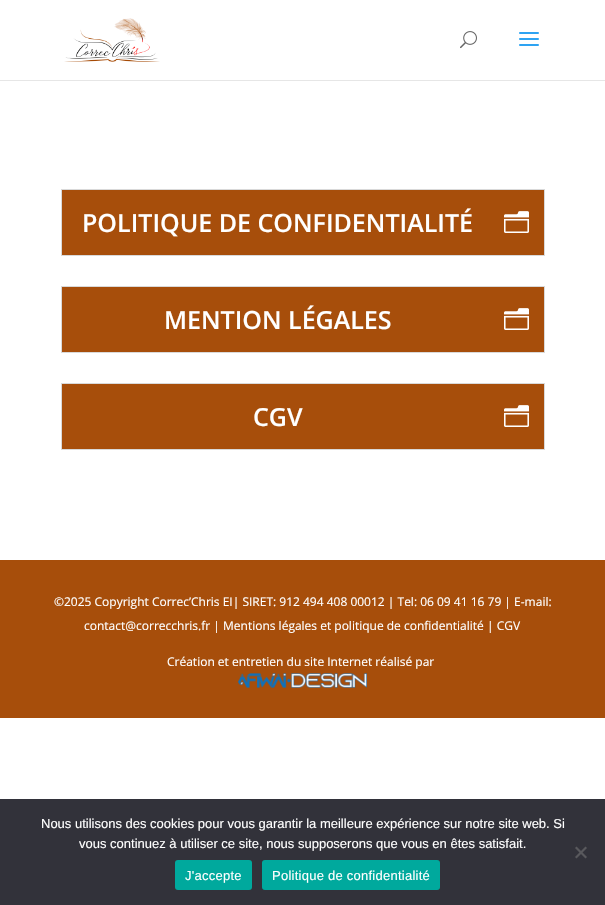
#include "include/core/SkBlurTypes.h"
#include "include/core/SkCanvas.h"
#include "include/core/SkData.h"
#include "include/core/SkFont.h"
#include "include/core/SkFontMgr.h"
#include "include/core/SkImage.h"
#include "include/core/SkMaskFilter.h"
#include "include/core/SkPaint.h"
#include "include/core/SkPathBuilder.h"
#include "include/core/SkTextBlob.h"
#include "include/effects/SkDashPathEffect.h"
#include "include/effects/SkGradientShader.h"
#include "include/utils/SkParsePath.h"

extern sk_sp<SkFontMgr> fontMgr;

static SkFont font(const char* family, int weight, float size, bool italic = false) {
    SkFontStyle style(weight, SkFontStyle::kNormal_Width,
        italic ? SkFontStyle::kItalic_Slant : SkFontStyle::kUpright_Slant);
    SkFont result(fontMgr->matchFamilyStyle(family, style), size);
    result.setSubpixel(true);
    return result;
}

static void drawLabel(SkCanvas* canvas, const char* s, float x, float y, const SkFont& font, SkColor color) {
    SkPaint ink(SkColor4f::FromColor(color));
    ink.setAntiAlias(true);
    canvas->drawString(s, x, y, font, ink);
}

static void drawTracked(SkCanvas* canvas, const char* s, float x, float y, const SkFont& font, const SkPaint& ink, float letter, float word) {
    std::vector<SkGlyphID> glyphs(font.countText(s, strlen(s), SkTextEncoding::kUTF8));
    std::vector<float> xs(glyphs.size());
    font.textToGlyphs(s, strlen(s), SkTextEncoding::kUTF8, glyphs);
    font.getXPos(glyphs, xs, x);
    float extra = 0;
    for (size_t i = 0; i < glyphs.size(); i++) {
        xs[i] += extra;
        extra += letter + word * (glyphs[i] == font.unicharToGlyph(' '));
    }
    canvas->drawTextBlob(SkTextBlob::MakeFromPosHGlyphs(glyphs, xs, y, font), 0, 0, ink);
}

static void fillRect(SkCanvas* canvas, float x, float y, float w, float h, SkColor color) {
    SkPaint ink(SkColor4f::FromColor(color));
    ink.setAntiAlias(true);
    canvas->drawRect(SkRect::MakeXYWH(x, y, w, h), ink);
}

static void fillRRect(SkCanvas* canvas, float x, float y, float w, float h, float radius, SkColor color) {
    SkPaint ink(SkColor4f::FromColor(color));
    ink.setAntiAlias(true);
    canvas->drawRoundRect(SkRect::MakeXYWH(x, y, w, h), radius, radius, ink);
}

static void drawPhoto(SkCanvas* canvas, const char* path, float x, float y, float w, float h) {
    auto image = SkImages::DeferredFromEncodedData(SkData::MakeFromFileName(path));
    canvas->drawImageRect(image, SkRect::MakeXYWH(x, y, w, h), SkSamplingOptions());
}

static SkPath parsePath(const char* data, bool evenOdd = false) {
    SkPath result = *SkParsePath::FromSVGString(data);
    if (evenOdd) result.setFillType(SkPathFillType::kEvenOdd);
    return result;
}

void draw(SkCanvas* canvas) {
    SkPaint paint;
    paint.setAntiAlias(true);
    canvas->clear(0xFFFFFFFF);
    fillRect(canvas, 0, 80, 605, 1, 0xFFE6E6E6);
    drawPhoto(canvas, "assets/img1.png", 64, 18, 96, 44);
    drawPhoto(canvas, "assets/img2.png", 460, 31, 17, 18);
    drawPhoto(canvas, "assets/img3.png", 519, 32, 20, 14);
    paint.setColor(0xFFA74E0B);
    canvas->drawRect(SkRect::MakeXYWH(61.5f, 189.5f, 483, 66), paint);
    paint.setStroke(true);
    paint.setStrokeWidth(1);
    paint.setColor(0xFFD9D9D9);
    canvas->drawRect(SkRect::MakeXYWH(61.5f, 189.5f, 483, 66), paint);
    SkFont font1 = font("Open Sans", 600, 25);
    drawLabel(canvas, "POLITIQUE DE CONFIDENTIALITÉ", 82, 232, font1, 0xFFFFFFFF);
    drawPhoto(canvas, "assets/img4.png", 504, 211, 25, 22);
    paint.setStroke(false);
    paint.setColor(0xFFA74E0B);
    canvas->drawRect(SkRect::MakeXYWH(61.5f, 286.5f, 483, 66), paint);
    paint.setStroke(true);
    paint.setColor(0xFFD9D9D9);
    canvas->drawRect(SkRect::MakeXYWH(61.5f, 286.5f, 483, 66), paint);
    drawLabel(canvas, "MENTION LÉGALES", 164, 329, font1, 0xFFFFFFFF);
    drawPhoto(canvas, "assets/img4.png", 504, 308, 25, 22);
    paint.setStroke(false);
    paint.setColor(0xFFA74E0B);
    canvas->drawRect(SkRect::MakeXYWH(61.5f, 383.5f, 483, 66), paint);
    paint.setStroke(true);
    paint.setColor(0xFFD9D9D9);
    canvas->drawRect(SkRect::MakeXYWH(61.5f, 383.5f, 483, 66), paint);
    drawLabel(canvas, "CGV", 253, 426, font1, 0xFFFFFFFF);
    drawPhoto(canvas, "assets/img4.png", 504, 405, 25, 22);
    fillRect(canvas, 0, 560, 605, 158, 0xFFA74E0B);
    SkFont font2 = font("Open Sans", 400, 12);
    drawLabel(canvas, "©2025 Copyright Correc’Chris EI| SIRET: 912 494 408 00012 | Tel: 06 09 41 16 79 | E-mail:", 54, 606, font2, 0xFFFFFFFF);
    drawLabel(canvas, "contact@correcchris.fr | Mentions légales et politique de confidentialité | CGV", 84, 630, font2, 0xFFFFFFFF);
    drawLabel(canvas, "Création et entretien du site Internet réalisé par", 167, 666, font2, 0xFFFFFFFF);
    drawPhoto(canvas, "assets/img5.png", 238, 673, 129, 15);
    fillRect(canvas, 0, 799, 605, 106, 0xFF32323A);
    SkFont font3 = font("Liberation Sans", 400, 13);
    drawLabel(canvas, "Nous utilisons des cookies pour vous garantir la meilleure expérience sur notre site web. Si", 41, 828, font3, 0xFFFFFFFF);
    drawLabel(canvas, "vous continuez à utiliser ce site, nous supposerons que vous en êtes satisfait.", 79, 848, font3, 0xFFFFFFFF);
    paint.setStroke(false);
    paint.setColor(0xFF59595D);
    canvas->drawPath(parsePath("M585.5 846.5L587 848L576.5 858.5L575 857Z"), paint);
    canvas->drawPath(parsePath("M575 848L576.5 846.5L587 857L585.5 858.5Z"), paint);
    fillRRect(canvas, 175, 860, 77, 30, 3, 0xFF00A99D);
    paint.setColor(0xFFFFFFFF);
    drawTracked(canvas, "J'accepte", 185, 880, font3, paint, 0.25f, 0);
    fillRRect(canvas, 262, 860, 178, 30, 3, 0xFF00A99D);
    drawTracked(canvas, "Politique de confidentialité", 272, 880, font3, paint, 0.25f, 0);
}
